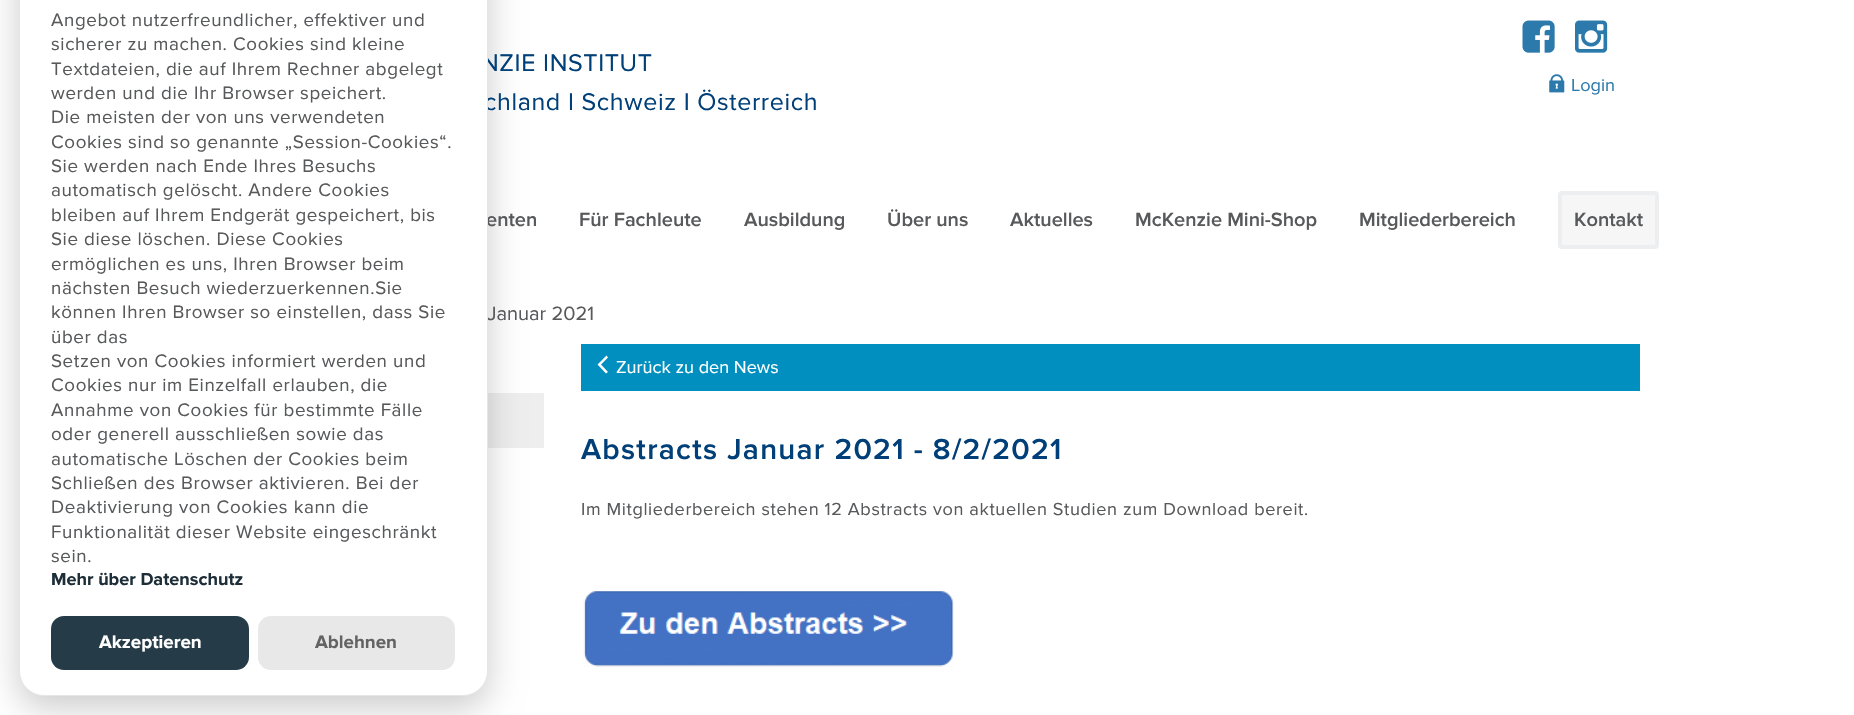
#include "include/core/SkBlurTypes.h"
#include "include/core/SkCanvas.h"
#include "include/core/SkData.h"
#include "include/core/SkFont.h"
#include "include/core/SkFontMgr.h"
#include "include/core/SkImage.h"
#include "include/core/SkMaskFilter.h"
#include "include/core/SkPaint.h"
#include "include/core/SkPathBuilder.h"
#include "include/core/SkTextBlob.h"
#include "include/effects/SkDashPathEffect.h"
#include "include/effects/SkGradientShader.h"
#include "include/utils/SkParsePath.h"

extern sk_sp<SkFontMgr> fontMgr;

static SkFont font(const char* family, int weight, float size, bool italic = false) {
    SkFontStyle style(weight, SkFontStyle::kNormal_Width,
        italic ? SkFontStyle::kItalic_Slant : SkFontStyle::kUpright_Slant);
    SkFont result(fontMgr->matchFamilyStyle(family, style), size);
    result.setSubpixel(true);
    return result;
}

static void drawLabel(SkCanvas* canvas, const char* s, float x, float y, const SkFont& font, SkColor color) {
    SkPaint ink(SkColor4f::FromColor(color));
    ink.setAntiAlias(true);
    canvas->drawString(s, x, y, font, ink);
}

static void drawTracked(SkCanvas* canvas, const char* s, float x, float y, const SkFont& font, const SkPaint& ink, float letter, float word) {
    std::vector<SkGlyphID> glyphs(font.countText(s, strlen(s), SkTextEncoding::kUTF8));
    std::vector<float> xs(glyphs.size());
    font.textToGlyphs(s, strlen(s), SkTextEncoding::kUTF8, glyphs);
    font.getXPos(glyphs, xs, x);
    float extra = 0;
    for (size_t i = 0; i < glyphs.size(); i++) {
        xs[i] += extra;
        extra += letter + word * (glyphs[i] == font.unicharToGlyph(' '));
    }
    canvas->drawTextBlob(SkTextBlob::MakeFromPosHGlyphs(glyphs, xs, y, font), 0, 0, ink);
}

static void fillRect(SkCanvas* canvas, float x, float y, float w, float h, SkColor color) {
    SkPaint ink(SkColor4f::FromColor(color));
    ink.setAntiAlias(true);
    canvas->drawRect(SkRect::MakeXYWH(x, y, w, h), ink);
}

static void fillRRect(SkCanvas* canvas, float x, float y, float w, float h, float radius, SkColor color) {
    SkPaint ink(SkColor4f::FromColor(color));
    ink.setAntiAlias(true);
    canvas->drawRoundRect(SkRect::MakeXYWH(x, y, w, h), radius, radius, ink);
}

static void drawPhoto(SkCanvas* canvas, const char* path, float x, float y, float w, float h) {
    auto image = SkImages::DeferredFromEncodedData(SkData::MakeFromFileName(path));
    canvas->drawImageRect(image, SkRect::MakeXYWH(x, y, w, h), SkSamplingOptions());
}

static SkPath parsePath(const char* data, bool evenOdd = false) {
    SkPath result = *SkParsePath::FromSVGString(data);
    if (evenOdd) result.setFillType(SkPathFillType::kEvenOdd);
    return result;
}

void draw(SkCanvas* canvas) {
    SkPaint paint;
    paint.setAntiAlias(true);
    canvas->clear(0xFFFFFFFF);
    fillRect(canvas, 488, 393, 56, 55, 0xFFEEEEEE);
    paint.setColor(0x33020203);
    paint.setMaskFilter(SkMaskFilter::MakeBlur(kNormal_SkBlurStyle, 17));
    canvas->drawRoundRect(SkRect::MakeXYWH(19, -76, 469, 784), 25, 25, paint);
    paint.setMaskFilter(nullptr);
    SkFont font1 = font("Proxima Nova", 400, 25);
    paint.setColor(0xFF003F77);
    drawTracked(canvas, "NZIE INSTITUT", 481, 71, font1, paint, 0.62f, 0);
    drawTracked(canvas, "chland I Schweiz I Österreich", 484, 110, font1, paint, 0.62f, 0);
    SkFont font2 = font("Proxima Nova", 600, 20);
    drawLabel(canvas, "enten", 486, 226, font2, 0xFF58595B);
    SkFont font3 = font("Proxima Nova", 400, 20);
    drawLabel(canvas, "Januar 2021", 487, 320, font3, 0xFF58595B);
    paint.setColor(0xFFFFFFFF);
    canvas->drawRoundRect(SkRect::MakeXYWH(19.5f, -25.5f, 468, 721), 24.5f, 24.5f, paint);
    paint.setStroke(true);
    paint.setStrokeWidth(1);
    paint.setColor(0xFFE6E6E6);
    canvas->drawRoundRect(SkRect::MakeXYWH(19.5f, -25.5f, 468, 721), 24.5f, 24.5f, paint);
    SkFont font4 = font("Proxima Nova", 400, 18.75f);
    paint.setStroke(false);
    paint.setColor(0xFF58595B);
    drawTracked(canvas, "Angebot nutzerfreundlicher, effektiver und", 51, 26, font4, paint, 0.62f, 0);
    drawTracked(canvas, "sicherer zu machen. Cookies sind kleine", 51, 50, font4, paint, 0.62f, 0);
    drawTracked(canvas, "Textdateien, die auf Ihrem Rechner abgelegt", 51, 75, font4, paint, 0.62f, 0);
    drawTracked(canvas, "werden und die Ihr Browser speichert.", 51, 99, font4, paint, 0.62f, 0);
    drawTracked(canvas, "Die meisten der von uns verwendeten", 51, 123, font4, paint, 0.62f, 0);
    drawTracked(canvas, "Cookies sind so genannte „Session-Cookies“.", 51, 148, font4, paint, 0.62f, 0);
    drawTracked(canvas, "Sie werden nach Ende Ihres Besuchs", 51, 172, font4, paint, 0.62f, 0);
    drawTracked(canvas, "automatisch gelöscht. Andere Cookies", 51, 196, font4, paint, 0.62f, 0);
    drawTracked(canvas, "bleiben auf Ihrem Endgerät gespeichert, bis", 51, 221, font4, paint, 0.62f, 0);
    drawTracked(canvas, "Sie diese löschen. Diese Cookies", 51, 245, font4, paint, 0.62f, 0);
    drawTracked(canvas, "ermöglichen es uns, Ihren Browser beim", 51, 270, font4, paint, 0.62f, 0);
    drawTracked(canvas, "nächsten Besuch wiederzuerkennen.Sie", 51, 294, font4, paint, 0.62f, 0);
    drawTracked(canvas, "können Ihren Browser so einstellen, dass Sie", 51, 318, font4, paint, 0.62f, 0);
    drawTracked(canvas, "über das", 51, 343, font4, paint, 0.62f, 0);
    drawTracked(canvas, "Setzen von Cookies informiert werden und", 51, 367, font4, paint, 0.62f, 0);
    drawTracked(canvas, "Cookies nur im Einzelfall erlauben, die", 51, 391, font4, paint, 0.62f, 0);
    drawTracked(canvas, "Annahme von Cookies für bestimmte Fälle", 51, 416, font4, paint, 0.62f, 0);
    drawTracked(canvas, "oder generell ausschließen sowie das", 51, 440, font4, paint, 0.62f, 0);
    drawTracked(canvas, "automatische Löschen der Cookies beim", 51, 465, font4, paint, 0.62f, 0);
    drawTracked(canvas, "Schließen des Browser aktivieren. Bei der", 51, 489, font4, paint, 0.62f, 0);
    drawTracked(canvas, "Deaktivierung von Cookies kann die", 51, 513, font4, paint, 0.62f, 0);
    drawTracked(canvas, "Funktionalität dieser Website eingeschränkt", 51, 538, font4, paint, 0.62f, 0);
    drawTracked(canvas, "sein.", 51, 562, font4, paint, 0.62f, 0);
    SkFont font5 = font("Proxima Nova", 700, 18.1f);
    drawLabel(canvas, "Mehr über Datenschutz", 51, 585, font5, 0xFF1D2E38);
    fillRRect(canvas, 51, 616, 198, 54, 13, 0xFF253B48);
    SkFont font6 = font("Proxima Nova", 700, 18.75f);
    drawLabel(canvas, "Akzeptieren", 99, 648, font6, 0xFFFFFFFF);
    fillRRect(canvas, 258, 616, 197, 54, 13, 0xFFE8E8E8);
    drawLabel(canvas, "Ablehnen", 315, 648, font6, 0xFF636363);
    drawPhoto(canvas, "assets/img1.png", 1522, 20, 33, 33);
    drawPhoto(canvas, "assets/img2.png", 1575, 20, 33, 33);
    drawPhoto(canvas, "assets/img3.png", 1549, 74, 16, 19);
    SkFont font7 = font("Proxima Nova", 400, 18.1f);
    drawLabel(canvas, "Login", 1571, 91, font7, 0xFF2C7AAB);
    drawLabel(canvas, "Für Fachleute", 579, 226, font2, 0xFF58595B);
    drawLabel(canvas, "Ausbildung", 744, 226, font2, 0xFF58595B);
    drawLabel(canvas, "Über uns", 887, 226, font2, 0xFF58595B);
    drawLabel(canvas, "Aktuelles", 1010, 226, font2, 0xFF58595B);
    drawLabel(canvas, "McKenzie Mini-Shop", 1135, 226, font2, 0xFF58595B);
    drawLabel(canvas, "Mitgliederbereich", 1359, 226, font2, 0xFF58595B);
    paint.setColor(0xFFF6F6F7);
    canvas->drawRoundRect(SkRect::MakeXYWH(1560, 193, 97, 54), 2, 2, paint);
    paint.setStroke(true);
    paint.setStrokeWidth(4);
    paint.setColor(0xFFEDEEEF);
    canvas->drawRoundRect(SkRect::MakeXYWH(1560, 193, 97, 54), 2, 2, paint);
    drawLabel(canvas, "Kontakt", 1574, 226, font2, 0xFF58595B);
    fillRect(canvas, 581, 344, 1059, 47, 0xFF008FBE);
    drawLabel(canvas, "Zurück zu den News", 616, 373, font7, 0xFFFFFFFF);
    paint.setStroke(false);
    paint.setColor(0xFFFFFFFF);
    canvas->drawPath(parsePath("M606 373.5L597.5 364.5L606.5 355.5L608 357.5L601 364.5L608 372Z"), paint);
    SkFont font8 = font("Proxima Nova", 600, 29.9f);
    paint.setColor(0xFF003F77);
    drawTracked(canvas, "Abstracts Januar 2021 - 8/2/2021", 581, 459, font8, paint, 1.25f, 0);
    paint.setColor(0xFF58595B);
    drawTracked(canvas, "Im Mitgliederbereich stehen 12 Abstracts von aktuellen Studien zum Download bereit.", 581, 515, font7, paint, 0.62f, 0);
    drawPhoto(canvas, "assets/img4.png", 583, 591, 371, 76);
}
